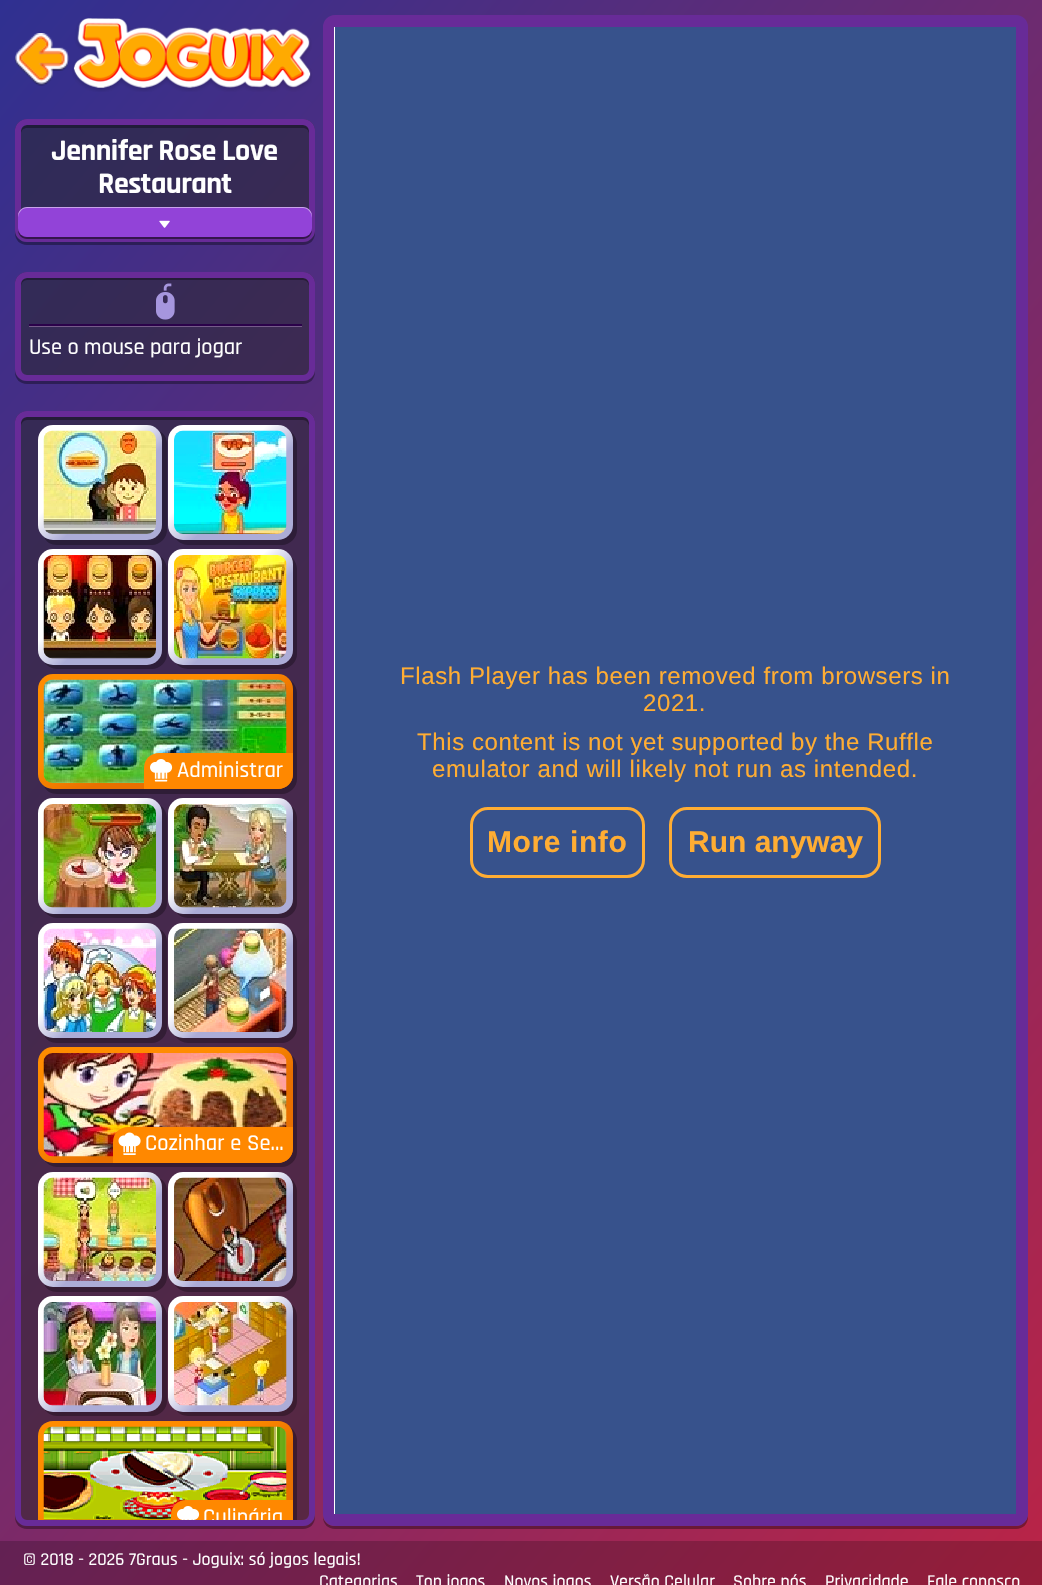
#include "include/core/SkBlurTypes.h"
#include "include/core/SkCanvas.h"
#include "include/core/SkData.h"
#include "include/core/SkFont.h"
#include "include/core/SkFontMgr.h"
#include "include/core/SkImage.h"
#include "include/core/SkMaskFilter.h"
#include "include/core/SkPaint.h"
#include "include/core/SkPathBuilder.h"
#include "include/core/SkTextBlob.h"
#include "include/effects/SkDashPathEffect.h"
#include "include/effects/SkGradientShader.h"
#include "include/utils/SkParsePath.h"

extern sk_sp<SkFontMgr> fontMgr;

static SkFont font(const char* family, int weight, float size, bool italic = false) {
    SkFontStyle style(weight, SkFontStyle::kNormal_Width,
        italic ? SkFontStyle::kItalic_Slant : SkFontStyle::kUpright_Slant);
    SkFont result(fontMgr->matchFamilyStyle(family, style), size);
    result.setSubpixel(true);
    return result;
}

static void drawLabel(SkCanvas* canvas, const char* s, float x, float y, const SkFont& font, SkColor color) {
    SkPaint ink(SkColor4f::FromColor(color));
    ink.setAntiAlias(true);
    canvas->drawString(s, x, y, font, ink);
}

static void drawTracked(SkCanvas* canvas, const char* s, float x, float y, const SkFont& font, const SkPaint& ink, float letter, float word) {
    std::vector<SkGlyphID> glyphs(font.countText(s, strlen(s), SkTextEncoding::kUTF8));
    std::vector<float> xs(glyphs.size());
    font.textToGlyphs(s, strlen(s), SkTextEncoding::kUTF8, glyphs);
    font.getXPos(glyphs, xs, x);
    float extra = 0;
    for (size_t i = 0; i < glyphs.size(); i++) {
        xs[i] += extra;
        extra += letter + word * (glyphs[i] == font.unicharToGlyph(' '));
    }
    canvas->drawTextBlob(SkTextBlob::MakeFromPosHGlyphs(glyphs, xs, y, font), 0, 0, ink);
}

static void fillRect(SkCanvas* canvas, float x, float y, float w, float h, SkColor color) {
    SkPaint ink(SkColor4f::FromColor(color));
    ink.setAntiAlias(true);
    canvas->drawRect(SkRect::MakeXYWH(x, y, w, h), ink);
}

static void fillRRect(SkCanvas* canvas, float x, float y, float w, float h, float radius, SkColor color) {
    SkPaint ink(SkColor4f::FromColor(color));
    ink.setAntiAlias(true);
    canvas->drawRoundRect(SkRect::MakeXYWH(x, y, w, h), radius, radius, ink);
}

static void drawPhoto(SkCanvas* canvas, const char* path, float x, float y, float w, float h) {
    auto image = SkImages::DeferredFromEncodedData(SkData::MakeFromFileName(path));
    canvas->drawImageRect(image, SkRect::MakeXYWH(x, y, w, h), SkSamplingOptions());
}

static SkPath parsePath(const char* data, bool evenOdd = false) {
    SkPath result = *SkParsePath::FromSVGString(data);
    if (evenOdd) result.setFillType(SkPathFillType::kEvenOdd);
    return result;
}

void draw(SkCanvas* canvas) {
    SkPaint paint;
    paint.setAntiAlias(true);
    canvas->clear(0xFFFFFFFF);
    {
        const SkColor colors[] = {0xFF2F3091, 0xFFBB2446};
        const float stops[] = {0, 1};
        const SkPoint ends[] = {{-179, 213}, {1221, 1388}};
        paint.setShader(SkGradientShader::MakeLinear(ends, colors, stops, 2, SkTileMode::kClamp));
        paint.setAlpha(255);
    }
    canvas->drawRect(SkRect::MakeXYWH(0, 0, 1042, 1541), paint);
    {
        const SkColor colors[] = {0xFF262674, 0xFF961D38};
        const float stops[] = {0, 1};
        const SkPoint ends[] = {{-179, 213}, {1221, 1388}};
        paint.setShader(SkGradientShader::MakeLinear(ends, colors, stops, 2, SkTileMode::kClamp));
        paint.setAlpha(255);
    }
    canvas->drawRect(SkRect::MakeXYWH(0, 1541, 1042, 44), paint);
    drawPhoto(canvas, "assets/img1.png", 15, 33, 54, 53);
    drawPhoto(canvas, "assets/img2.png", 72, 18, 240, 74);
    paint.setShader(nullptr);
    paint.setColor(0x59000000);
    canvas->drawPath(parsePath("M15 230V233C15 240 20 245 27 245H303C310 245 315 240 315 233V230C315 236 310 242 303 242H27C20 242 15 236 15 230Z"), paint);
    fillRRect(canvas, 15, 119, 300, 123, 12, 0x80262626);
    canvas->drawPath(parsePath("M27 128H303C306 128 309 130 309 134V131C309 128 306 125 303 125H27C24 125 21 128 21 131V134C21 130 24 128 27 128Z"), paint);
    paint.setStroke(true);
    paint.setStrokeWidth(6);
    paint.setColor(0xFF682B98);
    canvas->drawRoundRect(SkRect::MakeXYWH(18, 122, 294, 117), 9, 9, paint);
    SkFont font1 = font("Rajdhani", 700, 30);
    paint.setStroke(false);
    paint.setColor(0xFFFFFFFF);
    drawTracked(canvas, "Jennifer Rose Love", 51, 160, font1, paint, -0.5f, 0);
    drawTracked(canvas, "Restaurant", 98, 193, font1, paint, -0.5f, 0);
    paint.setColor(0xFF34164C);
    canvas->drawPath(parsePath("M18 228V230C18 235 22 239 27 239H303C308 239 312 235 312 230V228C312 233 308 237 303 237H27C22 237 18 233 18 228Z"), paint);
    fillRRect(canvas, 18, 207, 294, 30, 9, 0xFF9243D8);
    paint.setColor(0x80FFFFFF);
    canvas->drawPath(parsePath("M27 208H303C308 208 312 213 312 218V216C312 211 308 207 303 207H27C22 207 18 211 18 216V218C18 213 22 208 27 208Z"), paint);
    drawPhoto(canvas, "assets/img3.png", 159, 220, 11, 8);
    paint.setColor(0x59000000);
    canvas->drawPath(parsePath("M15 369V372C15 379 20 384 27 384H303C310 384 315 379 315 372V369C315 376 310 381 303 381H27C20 381 15 376 15 369Z"), paint);
    fillRRect(canvas, 15, 272, 300, 109, 12, 0x80262626);
    canvas->drawPath(parsePath("M27 280H303C306 280 309 283 309 286V284C309 281 306 278 303 278H27C24 278 21 281 21 284V286C21 283 24 280 27 280Z"), paint);
    paint.setStroke(true);
    paint.setColor(0xFF682B98);
    canvas->drawRoundRect(SkRect::MakeXYWH(18, 275, 294, 103), 9, 9, paint);
    drawPhoto(canvas, "assets/img4.png", 156, 283, 19, 37);
    paint.setStroke(false);
    paint.setColor(0xFF2B024A);
    canvas->drawPath(parsePath("M29 324V327H302V365V324Z"), paint);
    paint.setColor(0xFF755B89);
    canvas->drawPath(parsePath("M29 326V327H302V366V326Z"), paint);
    SkFont font2 = font("Rajdhani", 500, 22.5f);
    paint.setColor(0xFFFFFFFF);
    drawTracked(canvas, "Use o mouse para jogar", 29, 354, font2, paint, -0.15f, 0);
    paint.setColor(0x59000000);
    canvas->drawPath(parsePath("M15 1514V1517C15 1524 20 1529 27 1529H303C310 1529 315 1524 315 1517V1514C315 1520 310 1526 303 1526H27C20 1526 15 1520 15 1514Z"), paint);
    fillRRect(canvas, 15, 411, 300, 1115, 12, 0x80262626);
    canvas->drawPath(parsePath("M27 420H303C306 420 309 423 309 426V423C309 420 306 417 303 417H27C24 417 21 420 21 423V426C21 423 24 420 27 420Z"), paint);
    paint.setStroke(true);
    paint.setColor(0xFF682B98);
    canvas->drawRoundRect(SkRect::MakeXYWH(18, 414, 294, 1109), 9, 9, paint);
    paint.setStroke(false);
    paint.setColor(0x4D000000);
    canvas->drawPath(parsePath("M44 537C46 542 51 545 57 545H152C160 545 167 538 167 530V444C167 438 164 433 159 431C161 433 162 436 162 440V525C162 533 155 540 147 540H52C49 540 46 539 44 537Z"), paint);
    {
        const SkColor colors[] = {0xFFFFFFFF, 0xFFACACD7};
        const float stops[] = {0.4f, 0.6f};
        const SkPoint ends[] = {{42, 420}, {157, 544}};
        paint.setShader(SkGradientShader::MakeLinear(ends, colors, stops, 2, SkTileMode::kClamp));
        paint.setAlpha(255);
    }
    canvas->drawRoundRect(SkRect::MakeXYWH(38, 425, 124, 115), 15, 15, paint);
    drawPhoto(canvas, "assets/img5.png", 43, 430, 113, 104);
    paint.setShader(nullptr);
    paint.setColor(0x4D000000);
    canvas->drawPath(parsePath("M175 538C178 542 183 545 188 545H282C290 545 297 538 297 530V444C297 439 294 434 290 431C292 434 292 437 292 440V525C292 533 286 540 278 540H183C180 540 177 539 175 538Z"), paint);
    {
        const SkColor colors[] = {0xFFFFFFFF, 0xFFACACD7};
        const float stops[] = {0.4f, 0.6f};
        const SkPoint ends[] = {{173, 420}, {288, 544}};
        paint.setShader(SkGradientShader::MakeLinear(ends, colors, stops, 2, SkTileMode::kClamp));
        paint.setAlpha(255);
    }
    canvas->drawRoundRect(SkRect::MakeXYWH(168, 425, 125, 115), 15, 15, paint);
    drawPhoto(canvas, "assets/img6.png", 174, 430, 113, 104);
    paint.setShader(nullptr);
    paint.setColor(0x4D000000);
    canvas->drawPath(parsePath("M44 662C47 666 52 669 57 669H152C160 669 167 662 167 654V569C167 564 164 559 160 556C161 558 162 561 162 564V650C162 658 155 664 147 664H52C50 664 47 664 44 662Z"), paint);
    {
        const SkColor colors[] = {0xFFFFFFFF, 0xFFACACD7};
        const float stops[] = {0.4f, 0.6f};
        const SkPoint ends[] = {{42, 545}, {157, 669}};
        paint.setShader(SkGradientShader::MakeLinear(ends, colors, stops, 2, SkTileMode::kClamp));
        paint.setAlpha(255);
    }
    canvas->drawRoundRect(SkRect::MakeXYWH(38, 549, 124, 116), 15, 15, paint);
    drawPhoto(canvas, "assets/img7.png", 43, 555, 113, 104);
    paint.setShader(nullptr);
    paint.setColor(0x4D000000);
    canvas->drawPath(parsePath("M176 663C178 666 183 669 188 669H282C290 669 297 662 297 654V569C297 564 294 559 291 557C292 559 292 561 292 564V650C292 658 286 664 278 664H183C180 664 178 664 176 663Z"), paint);
    {
        const SkColor colors[] = {0xFFFFFFFF, 0xFFACACD7};
        const float stops[] = {0.4f, 0.6f};
        const SkPoint ends[] = {{173, 545}, {288, 669}};
        paint.setShader(SkGradientShader::MakeLinear(ends, colors, stops, 2, SkTileMode::kClamp));
        paint.setAlpha(255);
    }
    canvas->drawRoundRect(SkRect::MakeXYWH(168, 549, 125, 116), 15, 15, paint);
    drawPhoto(canvas, "assets/img8.png", 174, 555, 113, 104);
    paint.setShader(nullptr);
    paint.setColor(0x4D000000);
    canvas->drawPath(parsePath("M44 786C46 791 51 794 57 794H282C290 794 297 787 297 779V693C297 688 294 683 290 680C292 683 292 686 292 688V774C292 782 286 789 278 789H52C49 789 46 788 44 786Z"), paint);
    {
        const SkColor colors[] = {0xFFFF8C00, 0xFFE87000};
        const float stops[] = {0.4f, 0.6f};
        const SkPoint ends[] = {{122, 635}, {208, 827}};
        paint.setShader(SkGradientShader::MakeLinear(ends, colors, stops, 2, SkTileMode::kClamp));
        paint.setAlpha(255);
    }
    canvas->drawRoundRect(SkRect::MakeXYWH(38, 674, 255, 115), 15, 15, paint);
    drawPhoto(canvas, "assets/img9.png", 43, 679, 244, 104);
    paint.setShader(nullptr);
    paint.setColor(0xFFFF8800);
    canvas->drawPath(parsePath("M159 753H293V774C293 782.5 286.5 789 278 789H144V768C144 759.5 150.5 753 159 753Z"), paint);
    drawPhoto(canvas, "assets/img10.png", 150, 759, 23, 23);
    drawLabel(canvas, "Administrar", 177, 777, font2, 0xFFFFFFFF);
    paint.setColor(0x4D000000);
    canvas->drawPath(parsePath("M44 911C47 915 52 918 57 918H152C160 918 167 911 167 903V818C167 813 164 808 160 805C161 807 162 810 162 813V898C162 907 155 914 147 914H52C50 914 47 913 44 911Z"), paint);
    {
        const SkColor colors[] = {0xFFFFFFFF, 0xFFACACD7};
        const float stops[] = {0.4f, 0.6f};
        const SkPoint ends[] = {{42, 794}, {157, 918}};
        paint.setShader(SkGradientShader::MakeLinear(ends, colors, stops, 2, SkTileMode::kClamp));
        paint.setAlpha(255);
    }
    canvas->drawRoundRect(SkRect::MakeXYWH(38, 798, 124, 116), 15, 15, paint);
    drawPhoto(canvas, "assets/img11.png", 43, 804, 113, 104);
    paint.setShader(nullptr);
    paint.setColor(0x4D000000);
    canvas->drawPath(parsePath("M176 912C178 915 183 918 188 918H282C290 918 297 911 297 903V818C297 813 294 808 291 806C292 808 292 810 292 813V898C292 907 286 914 278 914H183C180 914 178 913 176 912Z"), paint);
    {
        const SkColor colors[] = {0xFFFFFFFF, 0xFFACACD7};
        const float stops[] = {0.4f, 0.6f};
        const SkPoint ends[] = {{173, 794}, {288, 918}};
        paint.setShader(SkGradientShader::MakeLinear(ends, colors, stops, 2, SkTileMode::kClamp));
        paint.setAlpha(255);
    }
    canvas->drawRoundRect(SkRect::MakeXYWH(168, 798, 125, 116), 15, 15, paint);
    drawPhoto(canvas, "assets/img12.png", 174, 804, 113, 104);
    paint.setShader(nullptr);
    paint.setColor(0x4D000000);
    canvas->drawPath(parsePath("M44 1035C46 1040 51 1043 57 1043H152C160 1043 167 1036 167 1028V942C167 936 164 931 159 929C161 931 162 934 162 938V1023C162 1031 155 1038 147 1038H52C49 1038 46 1037 44 1035Z"), paint);
    {
        const SkColor colors[] = {0xFFFFFFFF, 0xFFACACD7};
        const float stops[] = {0.4f, 0.6f};
        const SkPoint ends[] = {{42, 918}, {157, 1042}};
        paint.setShader(SkGradientShader::MakeLinear(ends, colors, stops, 2, SkTileMode::kClamp));
        paint.setAlpha(255);
    }
    canvas->drawRoundRect(SkRect::MakeXYWH(38, 923, 124, 115), 15, 15, paint);
    drawPhoto(canvas, "assets/img13.png", 43, 928, 113, 104);
    paint.setShader(nullptr);
    paint.setColor(0x4D000000);
    canvas->drawPath(parsePath("M175 1036C178 1040 183 1043 188 1043H282C290 1043 297 1036 297 1028V942C297 937 294 932 290 929C292 932 292 935 292 938V1023C292 1031 286 1038 278 1038H183C180 1038 177 1037 175 1036Z"), paint);
    {
        const SkColor colors[] = {0xFFFFFFFF, 0xFFACACD7};
        const float stops[] = {0.4f, 0.6f};
        const SkPoint ends[] = {{173, 918}, {288, 1042}};
        paint.setShader(SkGradientShader::MakeLinear(ends, colors, stops, 2, SkTileMode::kClamp));
        paint.setAlpha(255);
    }
    canvas->drawRoundRect(SkRect::MakeXYWH(168, 923, 125, 115), 15, 15, paint);
    drawPhoto(canvas, "assets/img14.png", 174, 928, 113, 104);
    paint.setShader(nullptr);
    paint.setColor(0x4D000000);
    canvas->drawPath(parsePath("M44 1160C47 1164 52 1167 57 1167H282C290 1167 297 1160 297 1152V1067C297 1062 294 1057 291 1055C292 1057 292 1059 292 1062V1148C292 1156 286 1162 278 1162H52C50 1162 47 1162 44 1160Z"), paint);
    {
        const SkColor colors[] = {0xFFFF8C00, 0xFFE87000};
        const float stops[] = {0.4f, 0.6f};
        const SkPoint ends[] = {{122, 1009}, {208, 1201}};
        paint.setShader(SkGradientShader::MakeLinear(ends, colors, stops, 2, SkTileMode::kClamp));
        paint.setAlpha(255);
    }
    canvas->drawRoundRect(SkRect::MakeXYWH(38, 1047, 255, 116), 15, 15, paint);
    drawPhoto(canvas, "assets/img15.png", 43, 1053, 244, 104);
    paint.setShader(nullptr);
    paint.setColor(0xFFFF8800);
    canvas->drawPath(parsePath("M128 1127H293V1148C293 1156.5 286.5 1163 278 1163H113V1142C113 1133.5 119.5 1127 128 1127Z"), paint);
    drawPhoto(canvas, "assets/img16.png", 118, 1132, 23, 23);
    drawLabel(canvas, "Cozinhar e Se...", 145, 1150, font2, 0xFFFFFFFF);
    paint.setColor(0x4D000000);
    canvas->drawPath(parsePath("M44 1284C46 1289 51 1292 57 1292H152C160 1292 167 1285 167 1277V1191C167 1185 164 1180 159 1178C161 1180 162 1183 162 1186V1272C162 1280 155 1287 147 1287H52C49 1287 46 1286 44 1284Z"), paint);
    {
        const SkColor colors[] = {0xFFFFFFFF, 0xFFACACD7};
        const float stops[] = {0.4f, 0.6f};
        const SkPoint ends[] = {{42, 1167}, {157, 1291}};
        paint.setShader(SkGradientShader::MakeLinear(ends, colors, stops, 2, SkTileMode::kClamp));
        paint.setAlpha(255);
    }
    canvas->drawRoundRect(SkRect::MakeXYWH(38, 1172, 124, 115), 15, 15, paint);
    drawPhoto(canvas, "assets/img17.png", 43, 1177, 113, 104);
    paint.setShader(nullptr);
    paint.setColor(0x4D000000);
    canvas->drawPath(parsePath("M175 1285C178 1289 183 1292 188 1292H282C290 1292 297 1285 297 1277V1191C297 1186 294 1181 290 1178C292 1181 292 1184 292 1186V1272C292 1280 286 1287 278 1287H183C180 1287 177 1286 175 1285Z"), paint);
    {
        const SkColor colors[] = {0xFFFFFFFF, 0xFFACACD7};
        const float stops[] = {0.4f, 0.6f};
        const SkPoint ends[] = {{173, 1167}, {288, 1291}};
        paint.setShader(SkGradientShader::MakeLinear(ends, colors, stops, 2, SkTileMode::kClamp));
        paint.setAlpha(255);
    }
    canvas->drawRoundRect(SkRect::MakeXYWH(168, 1172, 125, 115), 15, 15, paint);
    drawPhoto(canvas, "assets/img18.png", 174, 1177, 113, 104);
    paint.setShader(nullptr);
    paint.setColor(0x4D000000);
    canvas->drawPath(parsePath("M44 1409C47 1413 52 1416 57 1416H152C160 1416 167 1409 167 1401V1316C167 1311 164 1306 160 1303C161 1305 162 1308 162 1311V1396C162 1405 155 1412 147 1412H52C50 1412 47 1411 44 1409Z"), paint);
    {
        const SkColor colors[] = {0xFFFFFFFF, 0xFFACACD7};
        const float stops[] = {0.4f, 0.6f};
        const SkPoint ends[] = {{42, 1292}, {157, 1416}};
        paint.setShader(SkGradientShader::MakeLinear(ends, colors, stops, 2, SkTileMode::kClamp));
        paint.setAlpha(255);
    }
    canvas->drawRoundRect(SkRect::MakeXYWH(38, 1296, 124, 116), 15, 15, paint);
    drawPhoto(canvas, "assets/img19.png", 43, 1302, 113, 104);
    paint.setShader(nullptr);
    paint.setColor(0x4D000000);
    canvas->drawPath(parsePath("M176 1410C178 1413 183 1416 188 1416H282C290 1416 297 1409 297 1401V1316C297 1311 294 1306 291 1304C292 1306 292 1308 292 1311V1396C292 1405 286 1412 278 1412H183C180 1412 178 1411 176 1410Z"), paint);
    {
        const SkColor colors[] = {0xFFFFFFFF, 0xFFACACD7};
        const float stops[] = {0.4f, 0.6f};
        const SkPoint ends[] = {{173, 1292}, {288, 1416}};
        paint.setShader(SkGradientShader::MakeLinear(ends, colors, stops, 2, SkTileMode::kClamp));
        paint.setAlpha(255);
    }
    canvas->drawRoundRect(SkRect::MakeXYWH(168, 1296, 125, 116), 15, 15, paint);
    drawPhoto(canvas, "assets/img20.png", 174, 1302, 113, 104);
    paint.setShader(nullptr);
    paint.setColor(0xFF3D1B2F);
    canvas->drawPath(parsePath("M292 1520H297V1440C297 1435 294 1430 290 1427C292 1430 292 1433 292 1436Z"), paint);
    {
        const SkColor colors[] = {0xFFFF8C00, 0xFFE87000};
        const float stops[] = {0.4f, 0.6f};
        const SkPoint ends[] = {{122, 1382}, {208, 1574}};
        paint.setShader(SkGradientShader::MakeLinear(ends, colors, stops, 2, SkTileMode::kClamp));
        paint.setAlpha(255);
    }
    canvas->drawPath(parsePath("M53 1421H278C286.5 1421 293 1427.5 293 1436V1520H38V1436C38 1427.5 44.5 1421 53 1421Z"), paint);
    drawPhoto(canvas, "assets/img21.png", 43, 1426, 244, 94);
    paint.setShader(nullptr);
    paint.setColor(0xFFFF8800);
    canvas->drawPath(parsePath("M186 1500H293V1520H171V1515C171 1506.5 177.5 1500 186 1500Z"), paint);
    drawPhoto(canvas, "assets/img22.png", 177, 1506, 23, 14);
    canvas->save();
    canvas->clipPath(parsePath("M27 417H303C306.5 417 309 419.5 309 423V1514C309 1517.5 306.5 1520 303 1520H27C23.5 1520 21 1517.5 21 1514V423C21 419.5 23.5 417 27 417Z"), true);
    drawLabel(canvas, "Culinária", 203, 1524, font2, 0xFFFFFFFF);
    canvas->restore();
    paint.setColor(0x59000000);
    canvas->drawPath(parsePath("M323 1517C323 1524 328 1529 335 1529H1016C1023 1529 1028 1524 1028 1517V30L1027 27L1028 1514C1028 1520 1022 1526 1016 1526H334C329 1526 324 1522 323 1517Z"), paint);
    paint.setStroke(true);
    paint.setStrokeWidth(12);
    paint.setColor(0xFF682B98);
    canvas->drawRoundRect(SkRect::MakeXYWH(329, 21, 693, 1499), 6, 6, paint);
    fillRect(canvas, 334, 27, 1, 1487, 0xFFFFFFFF);
    fillRect(canvas, 335, 27, 681, 1487, 0xFF37528C);
    SkFont font3 = font("Liberation Sans", 400, 24);
    paint.setStroke(false);
    paint.setColor(0xFFFFAD33);
    drawTracked(canvas, "Flash Player has been removed from browsers in", 400, 684, font3, paint, 0.6f, 0);
    drawTracked(canvas, "2021.", 643, 711, font3, paint, 0.6f, 0);
    drawTracked(canvas, "This content is not yet supported by the Ruffle", 417, 750, font3, paint, 0.6f, 0);
    drawTracked(canvas, "emulator and will likely not run as intended.", 432, 777, font3, paint, 0.6f, 0);
    paint.setStroke(true);
    paint.setStrokeWidth(3);
    canvas->drawRoundRect(SkRect::MakeXYWH(471.5f, 808.5f, 172, 68), 16.5f, 16.5f, paint);
    SkFont font4 = font("Liberation Sans", 700, 30);
    paint.setStroke(false);
    drawTracked(canvas, "More info", 487, 852, font4, paint, 0.6f, 0);
    paint.setStroke(true);
    canvas->drawRoundRect(SkRect::MakeXYWH(670.5f, 808.5f, 209, 68), 16.5f, 16.5f, paint);
    drawLabel(canvas, "Run anyway", 688, 852, font4, 0xFFFFAD33);
    SkFont font5 = font("Rajdhani", 500, 18);
    drawLabel(canvas, "© 2018 - 2026 7Graus - Joguix: só jogos legais!", 23, 1565, font5, 0xFFFFFFFF);
    drawLabel(canvas, "Categorias", 319, 1587, font5, 0xFFFFFFFF);
    drawLabel(canvas, "Top jogos", 416, 1587, font5, 0xFFFFFFFF);
    drawLabel(canvas, "Novos jogos", 504, 1587, font5, 0xFFFFFFFF);
    drawLabel(canvas, "Versão Celular", 610, 1587, font5, 0xFFFFFFFF);
    drawLabel(canvas, "Sobre nós", 733, 1587, font5, 0xFFFFFFFF);
    drawLabel(canvas, "Privacidade", 825, 1587, font5, 0xFFFFFFFF);
    drawLabel(canvas, "Fale conosco", 927, 1587, font5, 0xFFFFFFFF);
}
